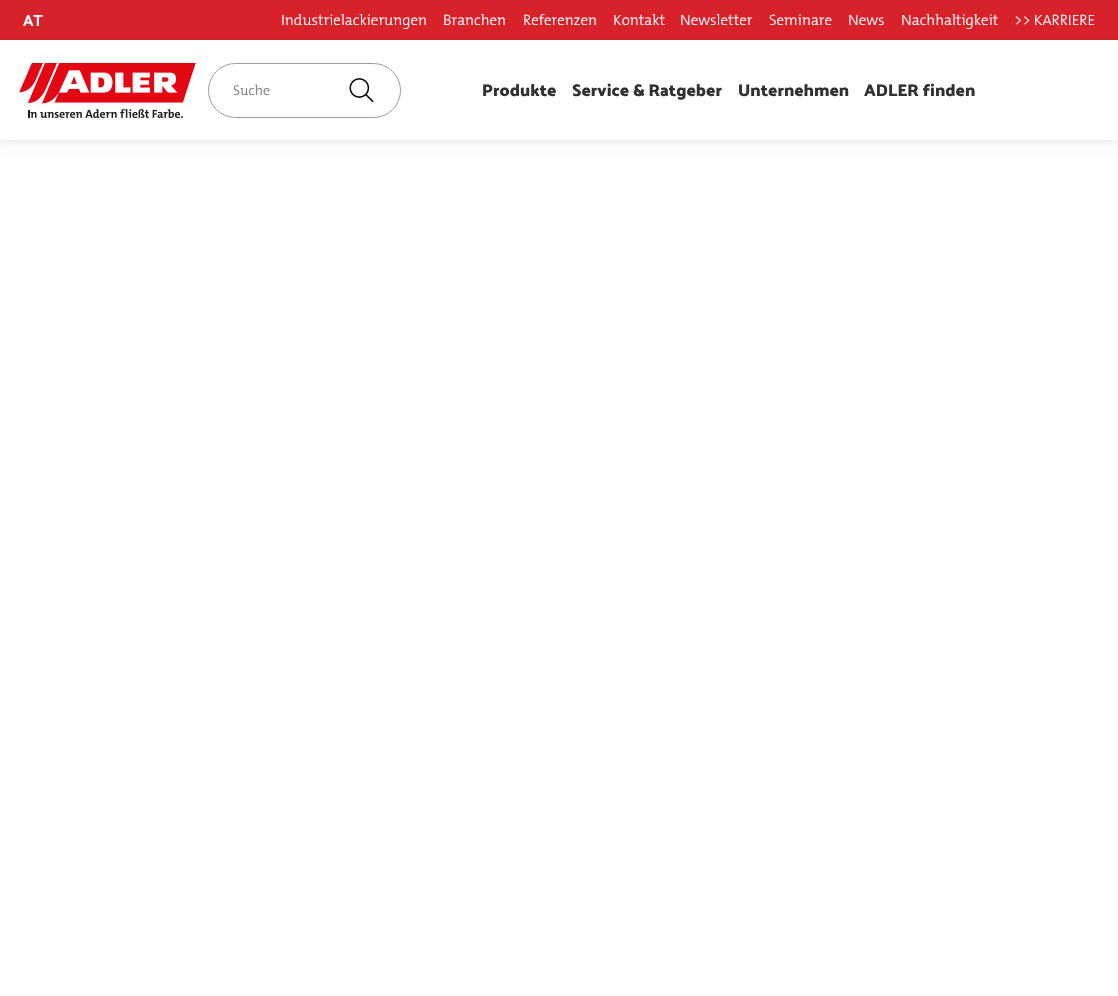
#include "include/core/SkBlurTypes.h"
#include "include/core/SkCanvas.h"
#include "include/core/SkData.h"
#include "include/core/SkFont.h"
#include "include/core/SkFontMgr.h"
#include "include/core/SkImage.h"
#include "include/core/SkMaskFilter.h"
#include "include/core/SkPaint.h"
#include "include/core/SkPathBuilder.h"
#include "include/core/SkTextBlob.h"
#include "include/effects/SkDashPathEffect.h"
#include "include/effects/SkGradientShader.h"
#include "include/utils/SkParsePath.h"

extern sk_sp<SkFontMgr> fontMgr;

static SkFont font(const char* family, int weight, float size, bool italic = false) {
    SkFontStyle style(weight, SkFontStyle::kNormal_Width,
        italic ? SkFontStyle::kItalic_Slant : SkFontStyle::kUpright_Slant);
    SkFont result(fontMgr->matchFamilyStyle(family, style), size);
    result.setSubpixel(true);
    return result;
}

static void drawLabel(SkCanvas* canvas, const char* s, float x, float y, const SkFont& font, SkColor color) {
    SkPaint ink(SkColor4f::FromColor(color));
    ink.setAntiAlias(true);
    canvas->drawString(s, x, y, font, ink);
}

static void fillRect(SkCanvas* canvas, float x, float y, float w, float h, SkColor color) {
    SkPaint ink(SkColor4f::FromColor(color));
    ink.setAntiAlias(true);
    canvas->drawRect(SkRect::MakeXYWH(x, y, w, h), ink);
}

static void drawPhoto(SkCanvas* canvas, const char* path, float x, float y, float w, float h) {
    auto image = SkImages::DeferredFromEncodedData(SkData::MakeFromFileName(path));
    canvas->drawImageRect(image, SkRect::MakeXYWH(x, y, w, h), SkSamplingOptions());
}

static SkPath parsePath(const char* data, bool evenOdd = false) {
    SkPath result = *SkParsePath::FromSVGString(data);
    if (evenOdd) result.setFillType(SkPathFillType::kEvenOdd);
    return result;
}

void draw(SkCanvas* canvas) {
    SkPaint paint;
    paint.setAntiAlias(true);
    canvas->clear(0xFFFFFFFF);
    fillRect(canvas, 0, 0, 1118, 40, 0xFFD8222B);
    SkFont font1 = font("Palanquin Dark", 400, 16);
    drawLabel(canvas, "AT", 23, 26, font1, 0xFFFFFFFF);
    SkFont font2 = font("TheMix", 300, 15);
    drawLabel(canvas, "Industrielackierungen", 281, 25, font2, 0xFFFFFFFF);
    drawLabel(canvas, "Branchen", 443, 25, font2, 0xFFFFFFFF);
    drawLabel(canvas, "Referenzen", 523, 25, font2, 0xFFFFFFFF);
    drawLabel(canvas, "Kontakt", 613, 25, font2, 0xFFFFFFFF);
    drawLabel(canvas, "Newsletter", 680, 25, font2, 0xFFFFFFFF);
    drawLabel(canvas, "Seminare", 769, 25, font2, 0xFFFFFFFF);
    drawLabel(canvas, "News", 848, 25, font2, 0xFFFFFFFF);
    drawLabel(canvas, "Nachhaltigkeit", 901, 25, font2, 0xFFFFFFFF);
    drawLabel(canvas, ">> KARRIERE", 1014, 25, font2, 0xFFFFFFFF);
    canvas->save();
    canvas->clipPath(parsePath("M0 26H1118V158H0ZM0 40H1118V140H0Z", true), true);
    paint.setColor(0x1A000000);
    paint.setMaskFilter(SkMaskFilter::MakeBlur(kNormal_SkBlurStyle, 5));
    canvas->drawRect(SkRect::MakeXYWH(0, 42, 1118, 100), paint);
    paint.setMaskFilter(nullptr);
    canvas->restore();
    drawPhoto(canvas, "assets/img1.png", 19, 63, 177, 55);
    paint.setStroke(true);
    paint.setStrokeWidth(1);
    paint.setColor(0xFF9B9B9B);
    canvas->drawRoundRect(SkRect::MakeXYWH(208.5f, 63.5f, 192, 54), 27, 27, paint);
    SkFont font3 = font("TheMix", 300, 14);
    drawLabel(canvas, "Suche", 233, 95, font3, 0xFF757575);
    drawPhoto(canvas, "assets/img2.png", 349, 78, 25, 25);
    SkFont font4 = font("Palanquin Dark", 600, 17);
    drawLabel(canvas, "Produkte", 482, 96, font4, 0xFF313131);
    drawLabel(canvas, "Service & Ratgeber", 572, 96, font4, 0xFF313131);
    drawLabel(canvas, "Unternehmen", 738, 96, font4, 0xFF313131);
    drawLabel(canvas, "ADLER finden", 864, 96, font4, 0xFF313131);
}
